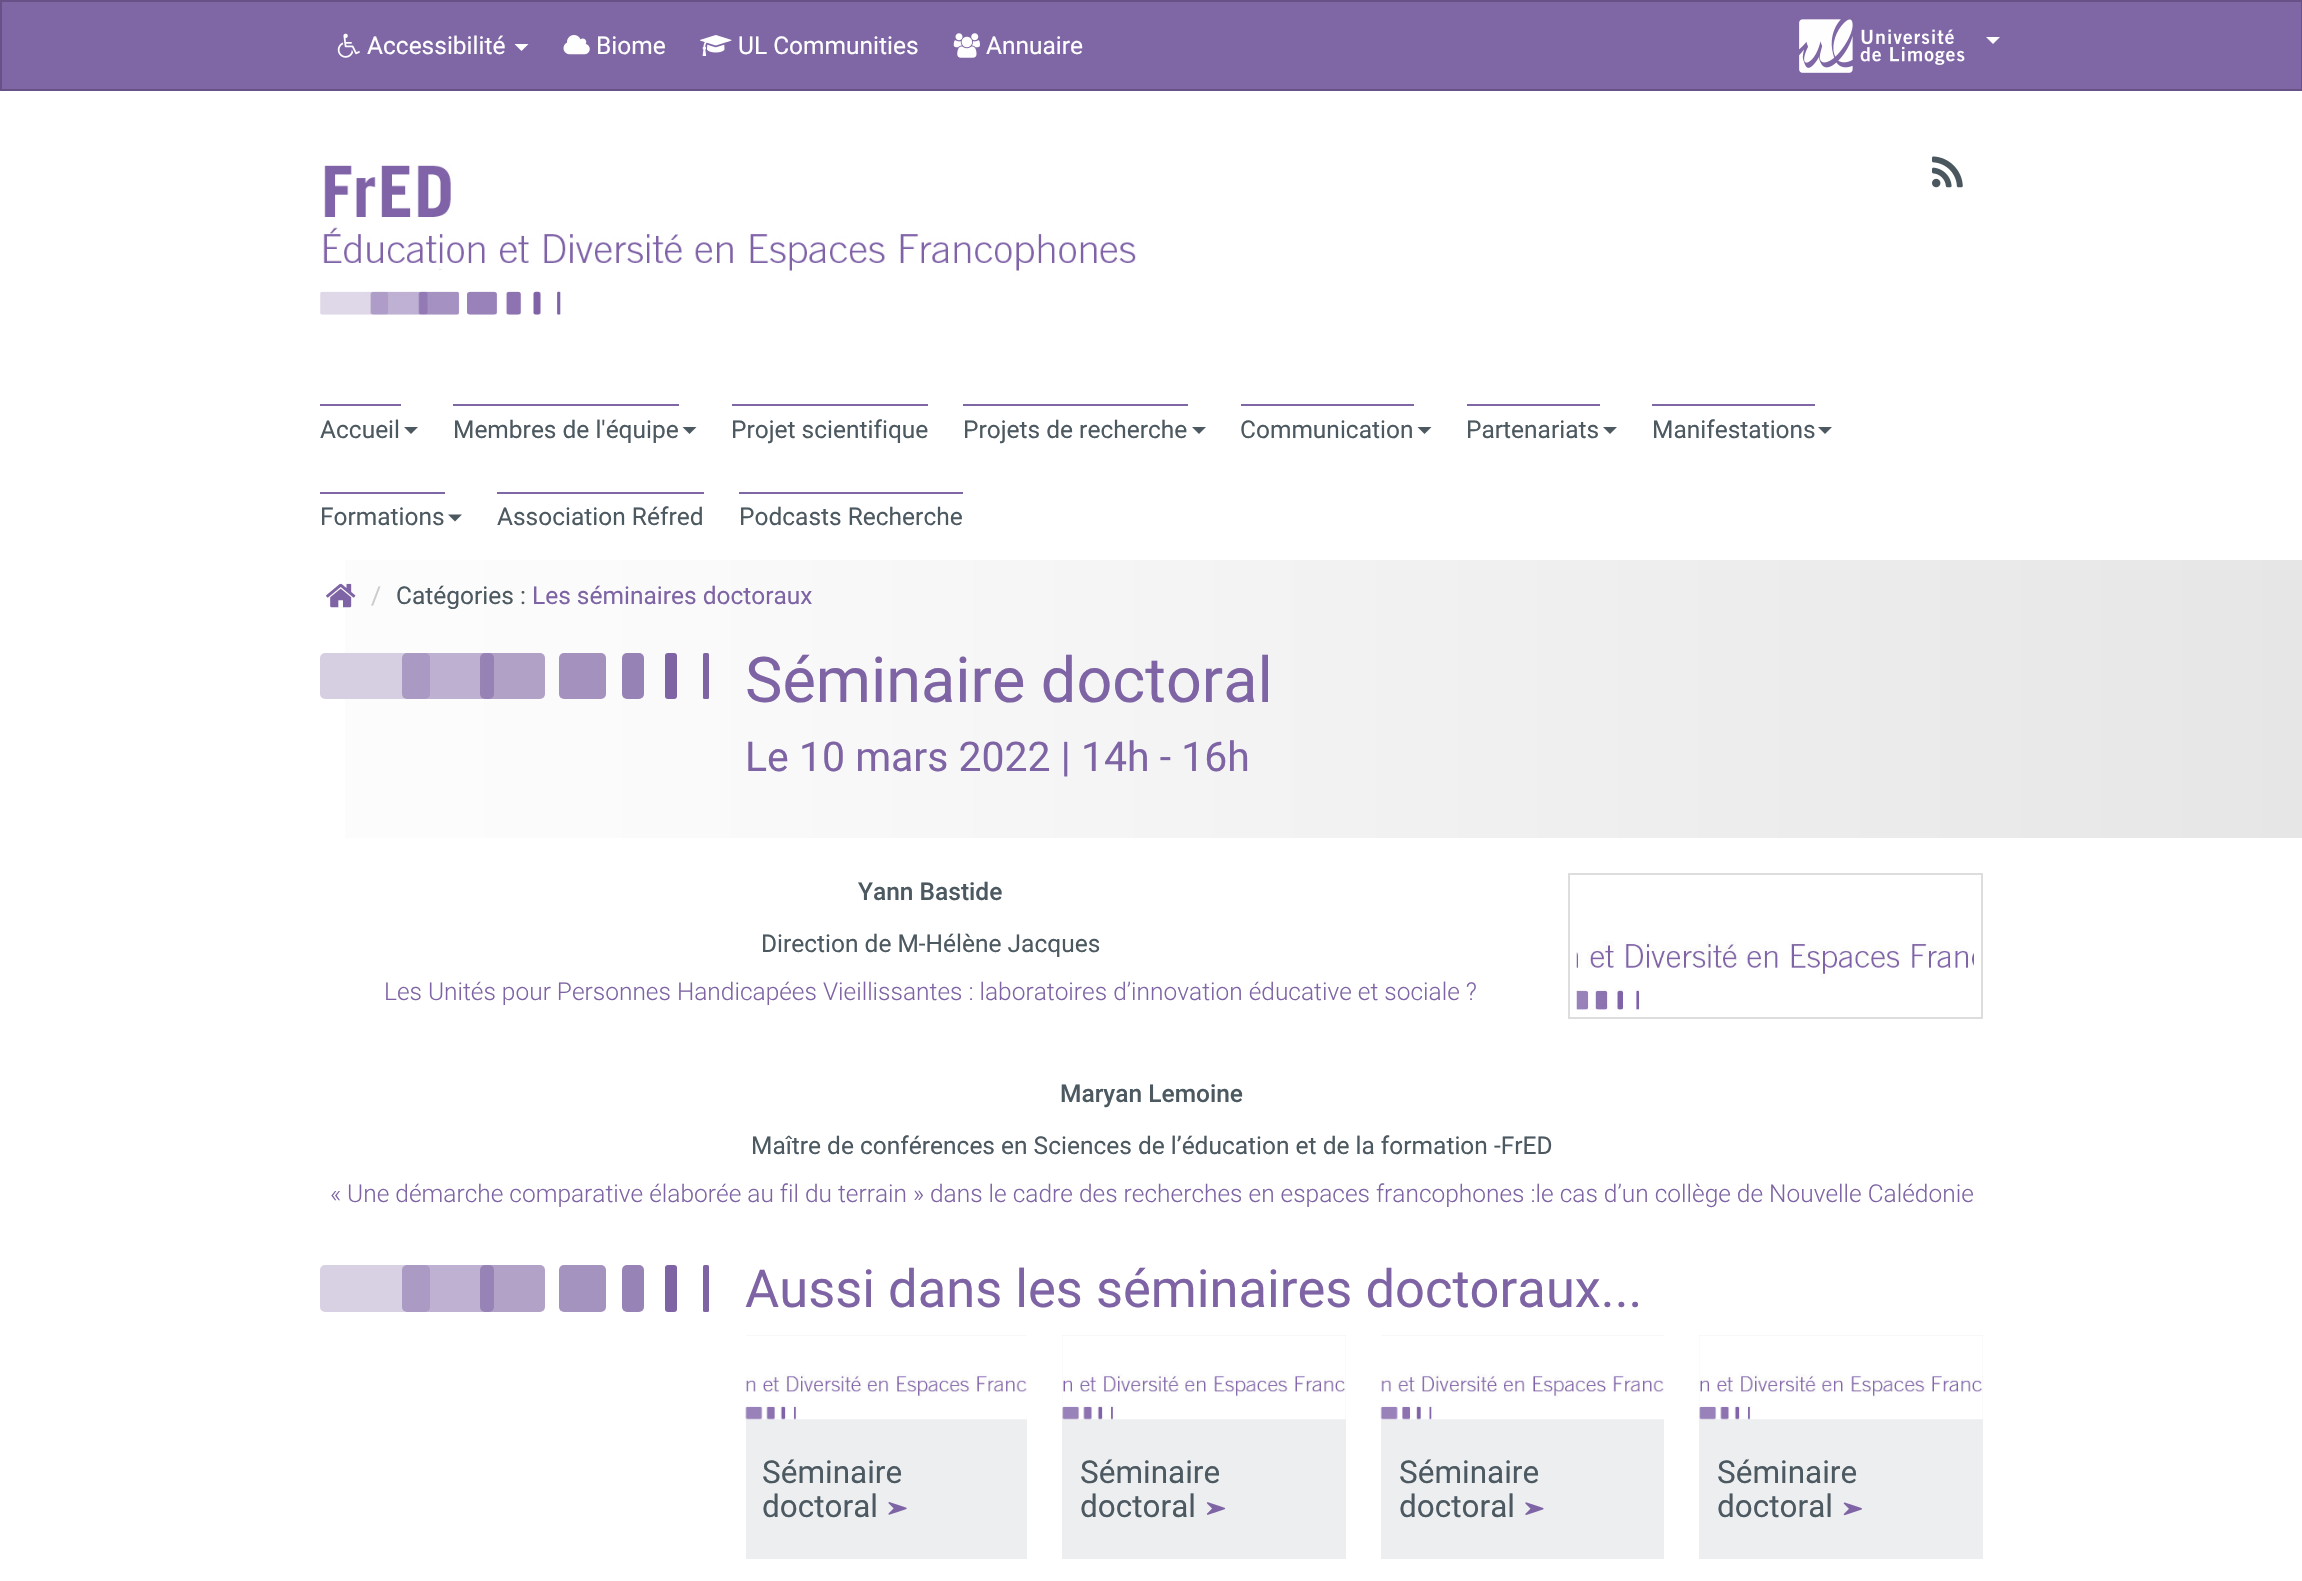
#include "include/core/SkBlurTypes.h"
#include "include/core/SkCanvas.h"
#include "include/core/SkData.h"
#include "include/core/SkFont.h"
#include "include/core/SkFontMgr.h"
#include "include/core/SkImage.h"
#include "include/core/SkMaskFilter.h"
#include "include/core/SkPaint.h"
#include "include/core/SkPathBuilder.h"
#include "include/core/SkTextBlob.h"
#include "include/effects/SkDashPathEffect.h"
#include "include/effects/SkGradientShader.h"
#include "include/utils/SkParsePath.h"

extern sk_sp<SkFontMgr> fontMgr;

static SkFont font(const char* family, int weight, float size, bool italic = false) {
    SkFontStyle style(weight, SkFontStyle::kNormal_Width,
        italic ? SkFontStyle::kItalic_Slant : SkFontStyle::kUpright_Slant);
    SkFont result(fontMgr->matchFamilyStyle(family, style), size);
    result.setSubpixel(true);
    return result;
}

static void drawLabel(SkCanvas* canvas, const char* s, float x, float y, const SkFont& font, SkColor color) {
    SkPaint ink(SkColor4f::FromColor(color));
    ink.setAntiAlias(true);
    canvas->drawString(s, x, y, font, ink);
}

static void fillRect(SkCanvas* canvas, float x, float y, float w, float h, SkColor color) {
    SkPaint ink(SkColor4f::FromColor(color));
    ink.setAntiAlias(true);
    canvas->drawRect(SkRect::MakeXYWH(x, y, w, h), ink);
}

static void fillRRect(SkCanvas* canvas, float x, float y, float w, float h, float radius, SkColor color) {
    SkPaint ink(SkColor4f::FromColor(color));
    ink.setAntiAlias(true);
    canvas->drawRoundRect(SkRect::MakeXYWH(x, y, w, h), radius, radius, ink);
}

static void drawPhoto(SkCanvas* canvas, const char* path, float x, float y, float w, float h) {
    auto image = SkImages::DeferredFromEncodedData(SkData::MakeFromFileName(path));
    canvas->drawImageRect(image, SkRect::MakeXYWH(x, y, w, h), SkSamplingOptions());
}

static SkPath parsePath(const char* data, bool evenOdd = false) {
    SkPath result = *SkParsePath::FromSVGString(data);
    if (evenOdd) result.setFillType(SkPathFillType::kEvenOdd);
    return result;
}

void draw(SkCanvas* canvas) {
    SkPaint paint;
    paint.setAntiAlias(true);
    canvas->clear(0xFFFFFFFF);
    paint.setColor(0xFF7F66A5);
    canvas->drawRect(SkRect::MakeXYWH(1, 1, 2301, 89), paint);
    paint.setStroke(true);
    paint.setStrokeWidth(2);
    paint.setColor(0xFF675187);
    canvas->drawRect(SkRect::MakeXYWH(1, 1, 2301, 89), paint);
    drawPhoto(canvas, "assets/img1.png", 337, 33, 23, 25);
    SkFont font1 = font("Roboto", 400, 24.5f);
    drawLabel(canvas, "Accessibilité", 367, 54, font1, 0xFFFFFFFF);
    paint.setStroke(false);
    paint.setColor(0xFFFFFFFF);
    canvas->drawPath(parsePath("M514.5 44H528.5L521.5 51Z"), paint);
    drawPhoto(canvas, "assets/img2.png", 563, 35, 27, 20);
    drawLabel(canvas, "Biome", 596, 54, font1, 0xFFFFFFFF);
    drawPhoto(canvas, "assets/img3.png", 700, 35, 32, 21);
    drawLabel(canvas, "UL Communities", 738, 54, font1, 0xFFFFFFFF);
    drawPhoto(canvas, "assets/img4.png", 953, 33, 27, 25);
    drawLabel(canvas, "Annuaire", 986, 54, font1, 0xFFFFFFFF);
    drawPhoto(canvas, "assets/img5.png", 1799, 19, 166, 54);
    canvas->drawPath(parsePath("M1986 37H2000L1993 44Z"), paint);
    drawPhoto(canvas, "assets/img6.png", 320, 165, 817, 150);
    drawPhoto(canvas, "assets/img7.png", 1932, 156, 31, 32);
    drawLabel(canvas, "Accueil", 320, 438, font1, 0xFF4D5961);
    fillRect(canvas, 320, 404, 81, 2, 0xFF7F66A5);
    paint.setColor(0xFF4D5961);
    canvas->drawPath(parsePath("M404 427H418L411 434Z"), paint);
    drawLabel(canvas, "Membres de l'équipe", 453, 438, font1, 0xFF4D5961);
    fillRect(canvas, 453, 404, 226, 2, 0xFF7F66A5);
    canvas->drawPath(parsePath("M682.5 427H696.5L689.5 434Z"), paint);
    drawLabel(canvas, "Projet scientifique", 731, 438, font1, 0xFF4D5961);
    fillRect(canvas, 732, 404, 196, 2, 0xFF7F66A5);
    drawLabel(canvas, "Projets de recherche", 963, 438, font1, 0xFF4D5961);
    fillRect(canvas, 963, 404, 225, 2, 0xFF7F66A5);
    canvas->drawPath(parsePath("M1192 427H1206L1199 434Z"), paint);
    drawLabel(canvas, "Communication", 1240, 438, font1, 0xFF4D5961);
    fillRect(canvas, 1241, 404, 173, 2, 0xFF7F66A5);
    canvas->drawPath(parsePath("M1417.5 427H1431.5L1424.5 434Z"), paint);
    drawLabel(canvas, "Partenariats", 1466, 438, font1, 0xFF4D5961);
    fillRect(canvas, 1467, 404, 133, 2, 0xFF7F66A5);
    canvas->drawPath(parsePath("M1603 427H1617L1610 434Z"), paint);
    drawLabel(canvas, "Manifestations", 1652, 438, font1, 0xFF4D5961);
    fillRect(canvas, 1652, 404, 163, 2, 0xFF7F66A5);
    canvas->drawPath(parsePath("M1818 427H1832L1825 434Z"), paint);
    drawLabel(canvas, "Formations", 320, 525, font1, 0xFF4D5961);
    fillRect(canvas, 320, 492, 125, 2, 0xFF7F66A5);
    canvas->drawPath(parsePath("M448 514.5H462L455 521.5Z"), paint);
    drawLabel(canvas, "Association Réfred", 497, 525, font1, 0xFF4D5961);
    fillRect(canvas, 497, 492, 207, 2, 0xFF7F66A5);
    drawLabel(canvas, "Podcasts Recherche", 739, 525, font1, 0xFF4D5961);
    fillRect(canvas, 739, 492, 224, 2, 0xFF7F66A5);
    {
        const SkColor colors[] = {0xFFFFFFFF, 0xFFFAFAFA, 0xFFE6E6E6};
        const float stops[] = {0, 0.3f, 1};
        const SkPoint ends[] = {{0, 699}, {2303, 699}};
        paint.setShader(SkGradientShader::MakeLinear(ends, colors, stops, 3, SkTileMode::kClamp));
        paint.setAlpha(255);
    }
    canvas->drawRect(SkRect::MakeXYWH(345, 560, 1957, 278), paint);
    drawPhoto(canvas, "assets/img8.png", 326, 583, 30, 25);
    drawLabel(canvas, "/", 371, 604, font1, 0xFFCCCCCC);
    drawLabel(canvas, "Catégories :", 396, 604, font1, 0xFF4D5961);
    drawLabel(canvas, "Les séminaires doctoraux", 532, 604, font1, 0xFF7E64A4);
    fillRRect(canvas, 320, 653, 110, 46, 5, 0xFFD6CFE2);
    fillRRect(canvas, 402, 653, 92, 46, 5, 0x807E64A4);
    fillRRect(canvas, 480, 653, 65, 46, 5, 0x997E64A4);
    fillRRect(canvas, 559, 653, 47, 46, 5, 0xFFA491BE);
    fillRRect(canvas, 622, 653, 22, 46, 5, 0xFF9782B5);
    fillRRect(canvas, 665, 653, 12, 46, 3, 0xFF7E64A4);
    fillRRect(canvas, 703, 653, 6, 46, 1.5f, 0xFF7E64A4);
    SkFont font2 = font("Roboto", 400, 63);
    drawLabel(canvas, "Séminaire doctoral", 745, 702, font2, 0xFF7E64A4);
    SkFont font3 = font("Roboto", 400, 41);
    drawLabel(canvas, "Le 10 mars 2022 | 14h - 16h", 745, 771, font3, 0xFF7E64A4);
    SkFont font4 = font("Roboto", 500, 24.5f);
    drawLabel(canvas, "Yann Bastide", 858, 900, font4, 0xFF4D5961);
    paint.setStroke(true);
    paint.setShader(nullptr);
    paint.setColor(0xFFDDDDDD);
    canvas->drawRect(SkRect::MakeXYWH(1569, 874, 413, 144), paint);
    drawPhoto(canvas, "assets/img9.png", 1576, 941, 398, 69);
    drawLabel(canvas, "Direction de M-Hélène Jacques", 761, 952, font1, 0xFF4D5961);
    SkFont font5 = font("Roboto", 300, 24.5f);
    drawLabel(canvas, "Les Unités pour Personnes Handicapées Vieillissantes : laboratoires d’innovation éducative et sociale ?", 384, 1000, font5, 0xFF7E64A4);
    drawLabel(canvas, "Maryan Lemoine", 1060, 1102, font4, 0xFF4D5961);
    drawLabel(canvas, "Maître de conférences en Sciences de l’éducation et de la formation -FrED", 751, 1154, font1, 0xFF4D5961);
    drawLabel(canvas, "« Une démarche comparative élaborée au fil du terrain » dans le cadre des recherches en espaces francophones :le cas d’un collège de Nouvelle Calédonie", 330, 1202, font5, 0xFF7E64A4);
    fillRRect(canvas, 320, 1265, 110, 47, 5, 0xFFD8D1E4);
    fillRRect(canvas, 402, 1265, 92, 47, 5, 0x807E64A4);
    fillRRect(canvas, 480, 1265, 65, 47, 5, 0x997E64A4);
    fillRRect(canvas, 559, 1265, 47, 47, 5, 0xFFA593BF);
    fillRRect(canvas, 622, 1265, 22, 47, 5, 0xFF9883B6);
    fillRRect(canvas, 665, 1265, 12, 47, 3, 0xFF7E64A4);
    fillRRect(canvas, 703, 1265, 6, 47, 1.5f, 0xFF7E64A4);
    SkFont font6 = font("Roboto", 400, 52.5f);
    drawLabel(canvas, "Aussi dans les séminaires doctoraux...", 745, 1307, font6, 0xFF7E64A4);
    fillRect(canvas, 746, 1335, 281, 224, 0xFFECEEF0);
    drawPhoto(canvas, "assets/img10.png", 745, 1335, 282, 85);
    SkFont font7 = font("Roboto", 400, 31.5f);
    drawLabel(canvas, "Séminaire", 762, 1483, font7, 0xFF4D5961);
    drawLabel(canvas, "doctoral", 762, 1517, font7, 0xFF4D5961);
    drawPhoto(canvas, "assets/img11.png", 888, 1502, 19, 13);
    fillRect(canvas, 1062, 1335, 284, 224, 0xFFECEEF0);
    drawPhoto(canvas, "assets/img12.png", 1062, 1335, 284, 85);
    drawLabel(canvas, "Séminaire", 1080, 1483, font7, 0xFF4D5961);
    drawLabel(canvas, "doctoral", 1080, 1517, font7, 0xFF4D5961);
    drawPhoto(canvas, "assets/img13.png", 1206, 1502, 20, 13);
    fillRect(canvas, 1381, 1335, 283, 224, 0xFFECEEF0);
    drawPhoto(canvas, "assets/img14.png", 1380, 1335, 284, 85);
    drawLabel(canvas, "Séminaire", 1399, 1483, font7, 0xFF4D5961);
    drawLabel(canvas, "doctoral", 1399, 1517, font7, 0xFF4D5961);
    drawPhoto(canvas, "assets/img15.png", 1525, 1502, 19, 13);
    fillRect(canvas, 1699, 1335, 284, 224, 0xFFECEEF0);
    drawPhoto(canvas, "assets/img12.png", 1699, 1335, 284, 85);
    drawLabel(canvas, "Séminaire", 1717, 1483, font7, 0xFF4D5961);
    drawLabel(canvas, "doctoral", 1717, 1517, font7, 0xFF4D5961);
    drawPhoto(canvas, "assets/img16.png", 1843, 1502, 19, 14);
}
